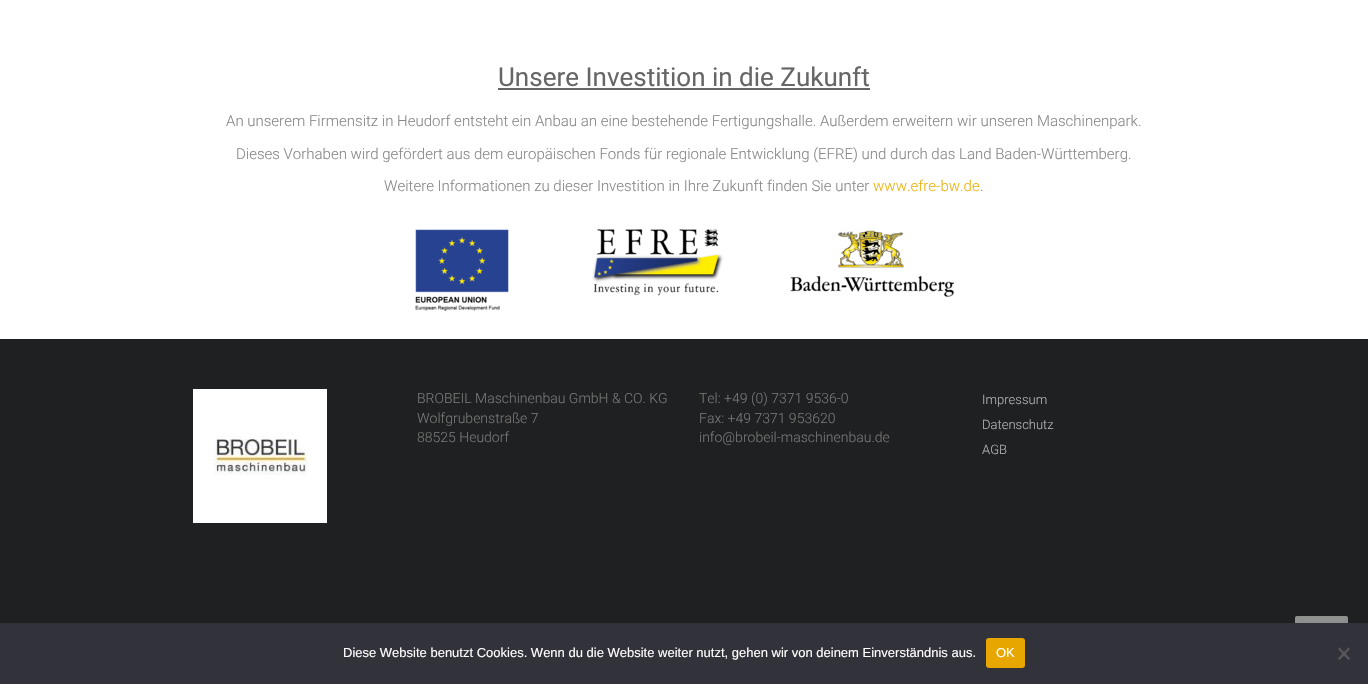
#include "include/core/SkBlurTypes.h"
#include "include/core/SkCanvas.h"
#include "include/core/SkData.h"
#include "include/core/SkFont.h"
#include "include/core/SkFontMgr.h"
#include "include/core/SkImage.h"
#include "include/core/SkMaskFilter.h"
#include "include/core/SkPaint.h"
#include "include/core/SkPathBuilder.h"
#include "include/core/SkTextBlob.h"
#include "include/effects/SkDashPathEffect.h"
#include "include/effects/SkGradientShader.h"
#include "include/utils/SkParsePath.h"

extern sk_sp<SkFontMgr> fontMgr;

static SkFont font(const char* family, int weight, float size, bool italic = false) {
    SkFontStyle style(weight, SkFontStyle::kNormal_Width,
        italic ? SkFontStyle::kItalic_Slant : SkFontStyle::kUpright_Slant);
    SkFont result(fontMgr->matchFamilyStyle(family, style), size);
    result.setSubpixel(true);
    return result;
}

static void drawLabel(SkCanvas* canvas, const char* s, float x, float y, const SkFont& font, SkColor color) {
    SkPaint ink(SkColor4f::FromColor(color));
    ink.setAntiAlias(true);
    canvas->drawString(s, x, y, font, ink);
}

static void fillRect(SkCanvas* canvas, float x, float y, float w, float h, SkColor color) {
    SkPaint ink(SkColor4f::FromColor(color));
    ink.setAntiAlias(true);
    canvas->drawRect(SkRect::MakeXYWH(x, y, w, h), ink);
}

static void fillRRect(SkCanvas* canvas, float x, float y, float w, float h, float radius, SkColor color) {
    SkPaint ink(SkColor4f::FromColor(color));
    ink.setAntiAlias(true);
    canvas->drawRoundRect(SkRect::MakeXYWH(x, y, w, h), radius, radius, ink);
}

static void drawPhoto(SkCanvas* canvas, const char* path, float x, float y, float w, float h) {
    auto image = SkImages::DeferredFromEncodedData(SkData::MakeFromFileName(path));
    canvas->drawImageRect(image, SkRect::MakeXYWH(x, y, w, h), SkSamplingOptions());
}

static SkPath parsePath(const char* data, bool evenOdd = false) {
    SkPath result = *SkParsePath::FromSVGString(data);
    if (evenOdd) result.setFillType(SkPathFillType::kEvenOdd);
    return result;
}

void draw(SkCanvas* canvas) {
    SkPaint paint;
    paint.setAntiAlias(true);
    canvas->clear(0xFFFFFFFF);
    SkFont font1 = font("Roboto", 400, 26);
    drawLabel(canvas, "Unsere Investition in die Zukunft", 498, 86, font1, 0xFF666666);
    fillRect(canvas, 498, 88, 372, 2, 0xFF666666);
    SkFont font2 = font("Roboto", 300, 15);
    drawLabel(canvas, "An unserem Firmensitz in Heudorf entsteht ein Anbau an eine bestehende Fertigungshalle. Außerdem erweitern wir unseren Maschinenpark.", 226, 126, font2, 0xFF888888);
    drawLabel(canvas, "Dieses Vorhaben wird gefördert aus dem europäischen Fonds für regionale Entwicklung (EFRE) und durch das Land Baden-Württemberg.", 236, 159, font2, 0xFF888888);
    drawLabel(canvas, "Weitere Informationen zu dieser Investition in Ihre Zukunft finden Sie unter", 384, 191, font2, 0xFF888888);
    drawLabel(canvas, "www.efre-bw.de", 873, 191, font2, 0xFFEDB210);
    drawLabel(canvas, ".", 980, 191, font2, 0xFF888888);
    drawPhoto(canvas, "assets/img1.png", 415, 229, 539, 82);
    fillRect(canvas, 0, 339, 1368, 284, 0xFF1F2021);
    drawPhoto(canvas, "assets/img2.png", 193, 389, 134, 134);
    SkFont font3 = font("Roboto", 300, 14);
    drawLabel(canvas, "BROBEIL Maschinenbau GmbH & CO. KG", 417, 403, font3, 0xFF777777);
    drawLabel(canvas, "Wolfgrubenstraße 7", 417, 423, font3, 0xFF777777);
    drawLabel(canvas, "88525 Heudorf", 417, 442, font3, 0xFF777777);
    drawLabel(canvas, "Tel: +49 (0) 7371 9536-0", 699, 403, font3, 0xFF777777);
    drawLabel(canvas, "Fax: +49 7371 953620", 699, 423, font3, 0xFF777777);
    drawLabel(canvas, "info@brobeil-maschinenbau.de", 699, 442, font3, 0xFF777777);
    SkFont font4 = font("Roboto", 300, 13);
    drawLabel(canvas, "Impressum", 982, 404, font4, 0xFFB1B6B6);
    drawLabel(canvas, "Datenschutz", 982, 429, font4, 0xFFB1B6B6);
    drawLabel(canvas, "AGB", 982, 454, font4, 0xFFB1B6B6);
    fillRRect(canvas, 1295, 616, 53, 48, 2, 0xFF8F9090);
    fillRect(canvas, 0, 623, 1368, 61, 0xFF32323A);
    SkFont font5 = font("Liberation Sans", 400, 13);
    drawLabel(canvas, "Diese Website benutzt Cookies. Wenn du die Website weiter nutzt, gehen wir von deinem Einverständnis aus.", 343, 657, font5, 0xFFFFFFFF);
    fillRRect(canvas, 986, 638, 39, 30, 3, 0xFFE8A600);
    drawLabel(canvas, "OK", 996, 657, font5, 0xFFFFFFFF);
    paint.setColor(0xFF59595D);
    canvas->drawPath(parsePath("M1348.5 647.5L1350 649L1339.5 660L1338 658.5Z"), paint);
    canvas->drawPath(parsePath("M1338 649L1339.5 647.5L1350 658.5L1348.5 660Z"), paint);
}
